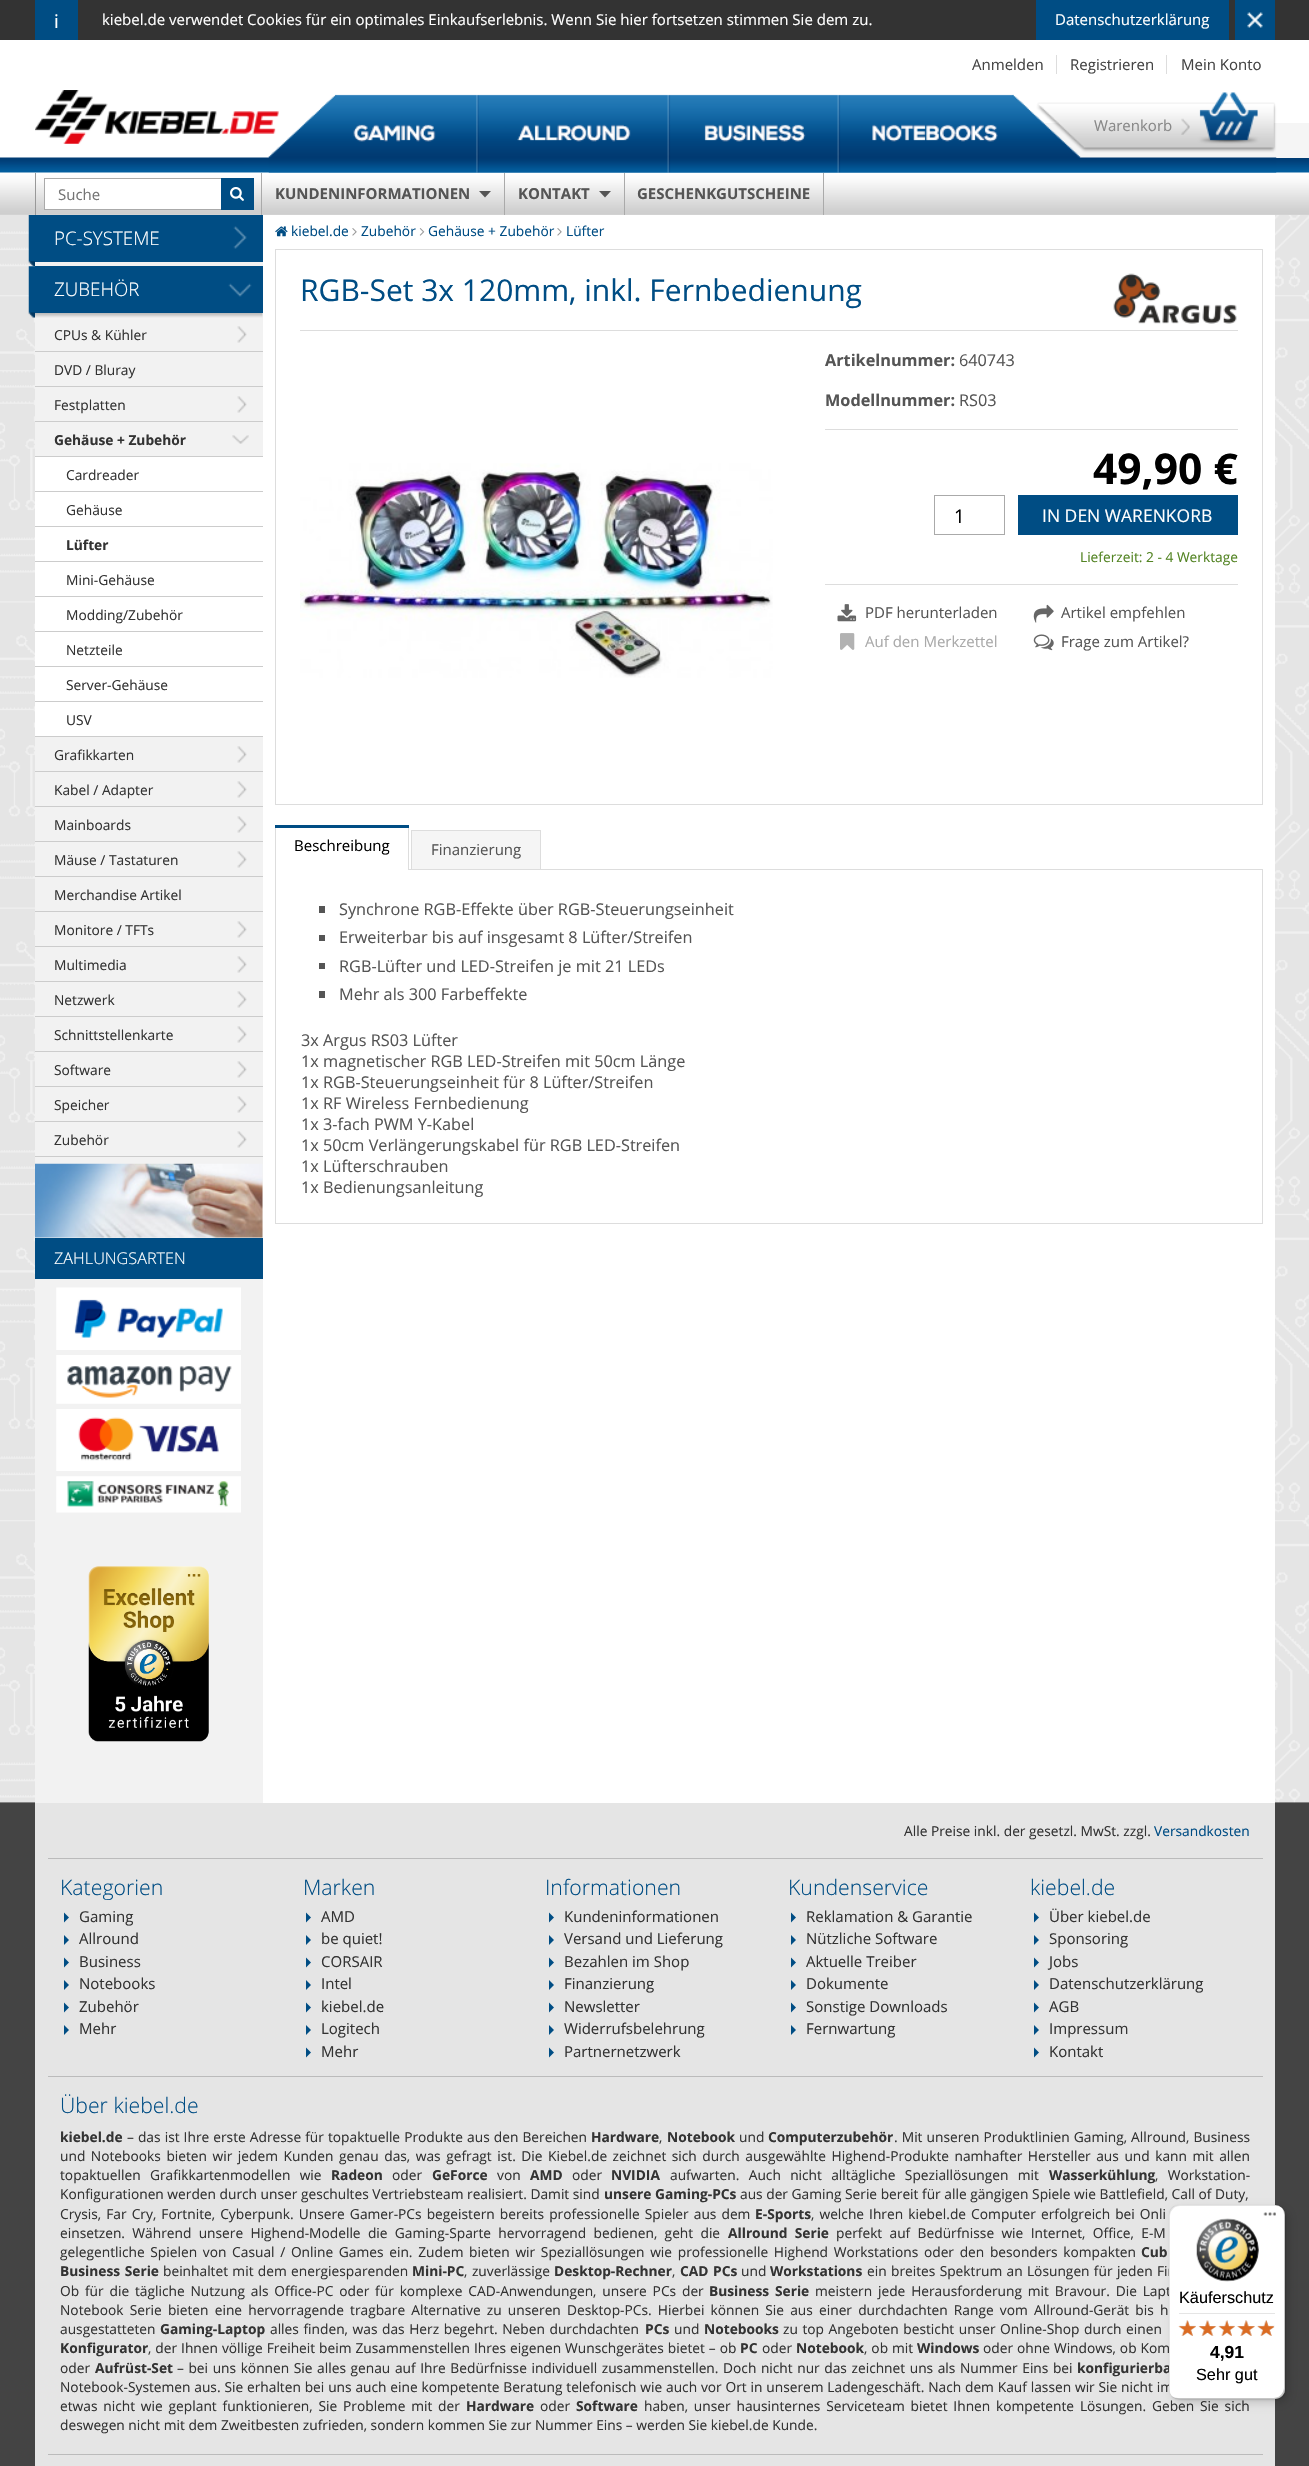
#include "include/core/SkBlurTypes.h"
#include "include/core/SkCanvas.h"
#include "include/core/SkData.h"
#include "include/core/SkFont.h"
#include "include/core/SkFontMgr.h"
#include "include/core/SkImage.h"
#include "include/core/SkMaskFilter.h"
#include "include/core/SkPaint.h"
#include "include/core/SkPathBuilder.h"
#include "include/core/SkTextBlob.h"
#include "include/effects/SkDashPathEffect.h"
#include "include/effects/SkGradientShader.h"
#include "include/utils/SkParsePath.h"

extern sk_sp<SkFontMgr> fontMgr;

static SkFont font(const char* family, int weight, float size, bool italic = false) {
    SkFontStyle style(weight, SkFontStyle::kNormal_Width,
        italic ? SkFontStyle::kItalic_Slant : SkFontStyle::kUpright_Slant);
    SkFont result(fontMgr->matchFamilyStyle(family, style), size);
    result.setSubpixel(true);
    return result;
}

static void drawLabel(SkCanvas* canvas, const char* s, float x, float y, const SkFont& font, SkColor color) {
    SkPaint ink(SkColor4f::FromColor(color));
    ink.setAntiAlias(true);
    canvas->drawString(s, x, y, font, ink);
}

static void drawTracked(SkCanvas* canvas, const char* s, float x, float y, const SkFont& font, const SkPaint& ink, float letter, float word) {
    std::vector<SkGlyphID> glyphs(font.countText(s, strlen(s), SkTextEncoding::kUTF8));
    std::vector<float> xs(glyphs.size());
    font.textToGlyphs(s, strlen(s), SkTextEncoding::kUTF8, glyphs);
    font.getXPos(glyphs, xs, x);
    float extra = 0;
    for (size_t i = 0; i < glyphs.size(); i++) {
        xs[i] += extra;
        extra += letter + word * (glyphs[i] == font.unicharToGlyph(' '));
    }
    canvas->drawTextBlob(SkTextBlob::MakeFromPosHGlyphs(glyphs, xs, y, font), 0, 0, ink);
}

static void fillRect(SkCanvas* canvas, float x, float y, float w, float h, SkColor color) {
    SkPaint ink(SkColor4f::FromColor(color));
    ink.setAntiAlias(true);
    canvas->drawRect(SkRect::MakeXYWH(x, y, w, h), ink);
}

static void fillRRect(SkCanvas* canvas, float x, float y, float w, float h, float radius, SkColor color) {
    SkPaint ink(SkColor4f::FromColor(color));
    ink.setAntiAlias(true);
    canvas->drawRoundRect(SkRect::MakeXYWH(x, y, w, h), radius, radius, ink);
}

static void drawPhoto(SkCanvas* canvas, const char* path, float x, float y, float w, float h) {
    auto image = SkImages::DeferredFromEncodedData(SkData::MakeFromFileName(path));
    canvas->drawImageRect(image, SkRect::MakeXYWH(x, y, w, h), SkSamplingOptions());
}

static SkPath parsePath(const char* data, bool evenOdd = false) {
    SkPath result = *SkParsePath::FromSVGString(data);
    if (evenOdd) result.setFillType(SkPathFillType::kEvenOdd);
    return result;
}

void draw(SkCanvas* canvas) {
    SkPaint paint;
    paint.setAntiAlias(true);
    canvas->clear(0xFF333333);
    fillRect(canvas, 35, 0, 43, 40, 0xFF004D84);
    SkFont font1 = font("Open Sans", 400, 18.75f);
    drawLabel(canvas, "i", 54, 28, font1, 0xFFFFFFFF);
    SkFont font2 = font("Open Sans", 400, 15);
    drawLabel(canvas, "kiebel.de verwendet Cookies für ein optimales Einkaufserlebnis. Wenn Sie hier fortsetzen stimmen Sie dem zu.", 102, 25, font2, 0xFFFFFFFF);
    fillRect(canvas, 1036, 0, 193, 40, 0xFF004D84);
    drawLabel(canvas, "Datenschutzerklärung", 1055, 25, font2, 0xFFFFFFFF);
    fillRect(canvas, 1235, 0, 40, 40, 0xFF004D84);
    drawPhoto(canvas, "assets/img1.png", 1247, 12, 16, 16);
    fillRect(canvas, 0, 40, 1309, 175, 0xFFFFFFFF);
    drawPhoto(canvas, "assets/img2.png", 0, 157, 1309, 58);
    fillRect(canvas, 1056, 55, 1, 19, 0xFFDDDDDD);
    drawLabel(canvas, "Anmelden", 972, 70, font2, 0xFF444444);
    fillRect(canvas, 1166, 55, 1, 19, 0xFFDDDDDD);
    drawLabel(canvas, "Registrieren", 1070, 70, font2, 0xFF444444);
    drawLabel(canvas, "Mein Konto", 1181, 70, font2, 0xFF444444);
    fillRect(canvas, 1042, 123, 267, 35, 0xFFF5F5F5);
    drawPhoto(canvas, "assets/img4.png", 268, 92, 1009, 81);
    drawPhoto(canvas, "assets/img3.png", 35, 90, 244, 54);
    drawPhoto(canvas, "assets/img5.png", 1181, 118, 9, 17);
    drawLabel(canvas, "Warenkorb", 1094, 131, font2, 0xFF888888);
    fillRect(canvas, 35, 173, 1, 42, 0xFF999999);
    fillRect(canvas, 45, 179, 176, 30, 0xFFFFFFFF);
    paint.setStroke(true);
    paint.setStrokeWidth(1);
    paint.setColor(0xFFAAAAAA);
    canvas->drawRect(SkRect::MakeXYWH(44.5f, 178.5f, 178, 31), paint);
    drawLabel(canvas, "Suche", 58, 200, font2, 0xFF757575);
    fillRect(canvas, 221, 178, 33, 32, 0xFF004D84);
    drawPhoto(canvas, "assets/img6.png", 230, 187, 14, 14);
    fillRect(canvas, 504, 173, 1, 42, 0xFFAAAAAA);
    fillRect(canvas, 261, 173, 1, 42, 0xFFAAAAAA);
    SkFont font3 = font("Open Sans", 700, 15);
    drawLabel(canvas, "KUNDENINFORMATIONEN", 275, 199, font3, 0xFF555555);
    paint.setStroke(false);
    paint.setColor(0xFF555555);
    canvas->drawPath(parsePath("M479 191H491L485 197.5Z"), paint);
    fillRect(canvas, 624, 173, 1, 42, 0xFFAAAAAA);
    drawLabel(canvas, "KONTAKT", 518, 199, font3, 0xFF555555);
    canvas->drawPath(parsePath("M599 191H611L605 197.5Z"), paint);
    fillRect(canvas, 823, 173, 1, 42, 0xFFAAAAAA);
    drawLabel(canvas, "GESCHENKGUTSCHEINE", 637, 199, font3, 0xFF555555);
    fillRect(canvas, 0, 1802, 1309, 1, 0xFF222222);
    drawPhoto(canvas, "assets/img7.png", 0, 215, 1309, 1588);
    fillRect(canvas, 263, 215, 1012, 1588, 0xFFFFFFFF);
    fillRect(canvas, 35, 215, 228, 47, 0xFF004D84);
    drawPhoto(canvas, "assets/img8.png", 233, 226, 14, 23);
    drawPhoto(canvas, "assets/img9.png", 28, 215, 7, 52);
    SkFont font4 = font("Open Sans", 300, 18.75f);
    drawLabel(canvas, "PC-SYSTEME", 54, 245, font4, 0xFFFFFFFF);
    fillRect(canvas, 35, 262, 228, 1541, 0xFFF2F2F2);
    drawPhoto(canvas, "assets/img10.png", 35, 313, 228, 5);
    fillRect(canvas, 35, 266, 228, 47, 0xFF004D84);
    drawPhoto(canvas, "assets/img11.png", 228, 283, 24, 14);
    drawPhoto(canvas, "assets/img12.png", 28, 266, 7, 52);
    drawLabel(canvas, "ZUBEHÖR", 54, 296, font4, 0xFFFFFFFF);
    fillRect(canvas, 35, 1156, 228, 1, 0xFFCCCCCC);
    drawPhoto(canvas, "assets/img13.png", 237, 326, 10, 17);
    SkFont font5 = font("Open Sans", 400, 13.75f);
    drawLabel(canvas, "CPUs & Kühler", 54, 340, font5, 0xFF333333);
    fillRect(canvas, 35, 351, 228, 1, 0xFFCCCCCC);
    drawLabel(canvas, "DVD / Bluray", 54, 375, font5, 0xFF333333);
    fillRect(canvas, 35, 386, 228, 1, 0xFFCCCCCC);
    drawPhoto(canvas, "assets/img13.png", 237, 396, 10, 17);
    drawLabel(canvas, "Festplatten", 54, 410, font5, 0xFF333333);
    fillRect(canvas, 35, 421, 228, 1, 0xFFCCCCCC);
    drawPhoto(canvas, "assets/img14.png", 232, 435, 17, 9);
    SkFont font6 = font("Open Sans", 700, 13.75f);
    drawLabel(canvas, "Gehäuse + Zubehör", 54, 445, font6, 0xFF333333);
    fillRect(canvas, 35, 457, 228, 34, 0xFFFFFFFF);
    fillRect(canvas, 35, 456, 228, 1, 0xFFCCCCCC);
    drawLabel(canvas, "Cardreader", 66, 480, font5, 0xFF333333);
    fillRect(canvas, 35, 492, 228, 34, 0xFFFFFFFF);
    fillRect(canvas, 35, 491, 228, 1, 0xFFCCCCCC);
    drawLabel(canvas, "Gehäuse", 66, 515, font5, 0xFF333333);
    fillRect(canvas, 35, 527, 228, 34, 0xFFFFFFFF);
    fillRect(canvas, 35, 526, 228, 1, 0xFFCCCCCC);
    drawLabel(canvas, "Lüfter", 66, 550, font6, 0xFF333333);
    fillRect(canvas, 35, 562, 228, 34, 0xFFFFFFFF);
    fillRect(canvas, 35, 561, 228, 1, 0xFFCCCCCC);
    drawLabel(canvas, "Mini-Gehäuse", 66, 585, font5, 0xFF333333);
    fillRect(canvas, 35, 597, 228, 34, 0xFFFFFFFF);
    fillRect(canvas, 35, 596, 228, 1, 0xFFCCCCCC);
    drawLabel(canvas, "Modding/Zubehör", 66, 620, font5, 0xFF333333);
    fillRect(canvas, 35, 632, 228, 34, 0xFFFFFFFF);
    fillRect(canvas, 35, 631, 228, 1, 0xFFCCCCCC);
    drawLabel(canvas, "Netzteile", 66, 655, font5, 0xFF333333);
    fillRect(canvas, 35, 667, 228, 34, 0xFFFFFFFF);
    fillRect(canvas, 35, 666, 228, 1, 0xFFCCCCCC);
    drawLabel(canvas, "Server-Gehäuse", 66, 690, font5, 0xFF333333);
    fillRect(canvas, 35, 702, 228, 34, 0xFFFFFFFF);
    fillRect(canvas, 35, 701, 228, 1, 0xFFCCCCCC);
    drawLabel(canvas, "USV", 66, 725, font5, 0xFF333333);
    fillRect(canvas, 35, 736, 228, 1, 0xFFCCCCCC);
    drawPhoto(canvas, "assets/img13.png", 237, 746, 10, 17);
    drawLabel(canvas, "Grafikkarten", 54, 760, font5, 0xFF333333);
    fillRect(canvas, 35, 771, 228, 1, 0xFFCCCCCC);
    drawPhoto(canvas, "assets/img15.png", 237, 781, 10, 17);
    drawLabel(canvas, "Kabel / Adapter", 54, 795, font5, 0xFF333333);
    fillRect(canvas, 35, 806, 228, 1, 0xFFCCCCCC);
    drawPhoto(canvas, "assets/img13.png", 237, 816, 10, 17);
    drawLabel(canvas, "Mainboards", 54, 830, font5, 0xFF333333);
    fillRect(canvas, 35, 841, 228, 1, 0xFFCCCCCC);
    drawPhoto(canvas, "assets/img13.png", 237, 851, 10, 17);
    drawLabel(canvas, "Mäuse / Tastaturen", 54, 865, font5, 0xFF333333);
    fillRect(canvas, 35, 876, 228, 1, 0xFFCCCCCC);
    drawLabel(canvas, "Merchandise Artikel", 54, 900, font5, 0xFF333333);
    fillRect(canvas, 35, 911, 228, 1, 0xFFCCCCCC);
    drawPhoto(canvas, "assets/img13.png", 237, 921, 10, 17);
    drawLabel(canvas, "Monitore / TFTs", 54, 935, font5, 0xFF333333);
    fillRect(canvas, 35, 946, 228, 1, 0xFFCCCCCC);
    drawPhoto(canvas, "assets/img13.png", 237, 956, 10, 17);
    drawLabel(canvas, "Multimedia", 54, 970, font5, 0xFF333333);
    fillRect(canvas, 35, 981, 228, 1, 0xFFCCCCCC);
    drawPhoto(canvas, "assets/img13.png", 237, 991, 10, 17);
    drawLabel(canvas, "Netzwerk", 54, 1005, font5, 0xFF333333);
    fillRect(canvas, 35, 1016, 228, 1, 0xFFCCCCCC);
    drawPhoto(canvas, "assets/img13.png", 237, 1026, 10, 17);
    drawLabel(canvas, "Schnittstellenkarte", 54, 1040, font5, 0xFF333333);
    fillRect(canvas, 35, 1051, 228, 1, 0xFFCCCCCC);
    drawPhoto(canvas, "assets/img13.png", 237, 1061, 10, 17);
    drawLabel(canvas, "Software", 54, 1075, font5, 0xFF333333);
    fillRect(canvas, 35, 1086, 228, 1, 0xFFCCCCCC);
    drawPhoto(canvas, "assets/img13.png", 237, 1096, 10, 17);
    drawLabel(canvas, "Speicher", 54, 1110, font5, 0xFF333333);
    fillRect(canvas, 35, 1121, 228, 1, 0xFFCCCCCC);
    drawPhoto(canvas, "assets/img13.png", 237, 1131, 10, 17);
    drawLabel(canvas, "Zubehör", 54, 1145, font5, 0xFF333333);
    drawPhoto(canvas, "assets/img16.png", 35, 1163, 228, 75);
    fillRect(canvas, 35, 1238, 228, 41, 0xFF004D84);
    SkFont font7 = font("Open Sans", 300, 16.25f);
    drawLabel(canvas, "ZAHLUNGSARTEN", 54, 1264, font7, 0xFFFFFFFF);
    drawPhoto(canvas, "assets/img17.png", 56, 1287, 185, 63);
    drawPhoto(canvas, "assets/img18.png", 56, 1355, 185, 49);
    drawPhoto(canvas, "assets/img19.png", 56, 1409, 185, 62);
    drawPhoto(canvas, "assets/img20.png", 56, 1476, 185, 37);
    drawPhoto(canvas, "assets/img21.png", 88, 1566, 121, 176);
    drawPhoto(canvas, "assets/img22.png", 275, 226, 13, 11);
    drawLabel(canvas, "kiebel.de", 291, 236, font5, 0xFF004D84);
    drawPhoto(canvas, "assets/img23.png", 352, 228, 5, 8);
    drawLabel(canvas, "Zubehör", 361, 236, font5, 0xFF004D84);
    drawPhoto(canvas, "assets/img24.png", 419, 228, 6, 8);
    drawLabel(canvas, "Gehäuse + Zubehör", 428, 236, font5, 0xFF004D84);
    drawPhoto(canvas, "assets/img23.png", 557, 228, 5, 8);
    drawLabel(canvas, "Lüfter", 566, 236, font5, 0xFF004D84);
    paint.setStroke(true);
    paint.setColor(0xFFDDDDDD);
    canvas->drawRect(SkRect::MakeXYWH(275.5f, 249.5f, 987, 555), paint);
    fillRect(canvas, 300, 330, 938, 1, 0xFFDDDDDD);
    SkFont font8 = font("Open Sans", 400, 30);
    drawLabel(canvas, "RGB-Set 3x 120mm, inkl. Fernbedienung", 300, 301, font8, 0xFF004D84);
    drawPhoto(canvas, "assets/img25.png", 1113, 273, 124, 51);
    drawPhoto(canvas, "assets/img26.png", 300, 463, 473, 215);
    SkFont font9 = font("Open Sans", 700, 16.25f);
    drawLabel(canvas, "Artikelnummer:", 825, 366, font9, 0xFF555555);
    SkFont font10 = font("Open Sans", 400, 16.25f);
    drawLabel(canvas, "640743", 959, 366, font10, 0xFF555555);
    drawLabel(canvas, "Modellnummer:", 825, 406, font9, 0xFF555555);
    drawLabel(canvas, "RS03", 959, 406, font10, 0xFF555555);
    fillRect(canvas, 825, 429, 413, 1, 0xFFDDDDDD);
    SkFont font11 = font("Open Sans", 700, 42.5f);
    drawLabel(canvas, "49,90 €", 1093, 484, font11, 0xFF000000);
    paint.setColor(0xFFAAAAAA);
    canvas->drawRect(SkRect::MakeXYWH(934.5f, 495.5f, 70, 39), paint);
    drawLabel(canvas, "1", 954, 523, font1, 0xFF000000);
    fillRect(canvas, 1018, 495, 220, 40, 0xFF004D84);
    SkFont font12 = font("Open Sans", 400, 17.5f);
    drawLabel(canvas, "IN DEN WARENKORB", 1042, 522, font12, 0xFFFFFFFF);
    drawLabel(canvas, "Lieferzeit: 2 - 4 Werktage", 1080, 562, font5, 0xFF538423);
    fillRect(canvas, 825, 584, 413, 1, 0xFFDDDDDD);
    drawPhoto(canvas, "assets/img27.png", 837, 604, 20, 18);
    drawLabel(canvas, "PDF herunterladen", 865, 618, font2, 0xFF555555);
    drawPhoto(canvas, "assets/img28.png", 1033, 604, 21, 19);
    drawLabel(canvas, "Artikel empfehlen", 1061, 618, font2, 0xFF555555);
    drawPhoto(canvas, "assets/img29.png", 840, 633, 15, 17);
    drawLabel(canvas, "Auf den Merkzettel", 865, 647, font2, 0xFFAAAAAA);
    drawPhoto(canvas, "assets/img30.png", 1033, 634, 21, 17);
    drawLabel(canvas, "Frage zum Artikel?", 1061, 647, font2, 0xFF555555);
    fillRect(canvas, 275, 825, 134, 3, 0xFF004D84);
    paint.setColor(0xFFDDDDDD);
    canvas->drawRect(SkRect::MakeXYWH(275.5f, 869.5f, 987, 354), paint);
    fillRect(canvas, 276, 869, 132, 1, 0xFFFFFFFF);
    fillRect(canvas, 408, 828, 1, 42, 0xFFDDDDDD);
    fillRect(canvas, 275, 828, 1, 42, 0xFFDDDDDD);
    drawLabel(canvas, "Beschreibung", 294, 851, font2, 0xFF000000);
    paint.setStroke(false);
    paint.setColor(0xFFF5F5F5);
    canvas->drawRect(SkRect::MakeXYWH(411.5f, 830.5f, 129, 39), paint);
    paint.setStroke(true);
    paint.setColor(0xFFDDDDDD);
    canvas->drawRect(SkRect::MakeXYWH(411.5f, 830.5f, 129, 39), paint);
    drawLabel(canvas, "Finanzierung", 431, 855, font2, 0xFF555555);
    fillRect(canvas, 319, 906, 6, 7, 0xFF555555);
    drawLabel(canvas, "Synchrone RGB-Effekte über RGB-Steuerungseinheit", 339, 915, font10, 0xFF555555);
    fillRect(canvas, 319, 935, 6, 6, 0xFF555555);
    drawLabel(canvas, "Erweiterbar bis auf insgesamt 8 Lüfter/Streifen", 339, 943, font10, 0xFF555555);
    fillRect(canvas, 319, 963, 6, 6, 0xFF555555);
    drawLabel(canvas, "RGB-Lüfter und LED-Streifen je mit 21 LEDs", 339, 972, font10, 0xFF555555);
    fillRect(canvas, 319, 991, 6, 7, 0xFF555555);
    drawLabel(canvas, "Mehr als 300 Farbeffekte", 339, 1000, font10, 0xFF555555);
    drawLabel(canvas, "3x Argus RS03 Lüfter", 301, 1046, font10, 0xFF555555);
    drawLabel(canvas, "1x magnetischer RGB LED-Streifen mit 50cm Länge", 301, 1067, font10, 0xFF555555);
    drawLabel(canvas, "1x RGB-Steuerungseinheit für 8 Lüfter/Streifen", 301, 1088, font10, 0xFF555555);
    drawLabel(canvas, "1x RF Wireless Fernbedienung", 301, 1109, font10, 0xFF555555);
    drawLabel(canvas, "1x 3-fach PWM Y-Kabel", 301, 1130, font10, 0xFF555555);
    drawLabel(canvas, "1x 50cm Verlängerungskabel für RGB LED-Streifen", 301, 1151, font10, 0xFF555555);
    drawLabel(canvas, "1x Lüfterschrauben", 301, 1172, font10, 0xFF555555);
    drawLabel(canvas, "1x Bedienungsanleitung", 301, 1193, font10, 0xFF555555);
    fillRect(canvas, 0, 1803, 1309, 663, 0xFF444444);
    fillRect(canvas, 35, 1803, 1240, 663, 0xFFE5E5E5);
    drawLabel(canvas, "Alle Preise inkl. der gesetzl. MwSt. zzgl.", 904, 1836, font5, 0xFF333333);
    drawLabel(canvas, "Versandkosten", 1154, 1836, font5, 0xFF004D84);
    fillRect(canvas, 48, 1858, 1215, 1, 0xFFBBBBBB);
    SkFont font13 = font("Open Sans", 300, 21.25f);
    drawLabel(canvas, "Kategorien", 60, 1895, font13, 0xFF004D84);
    paint.setStroke(false);
    paint.setColor(0xFF004D84);
    canvas->drawPath(parsePath("M64 1922.5V1912.5L69 1917.5Z"), paint);
    drawLabel(canvas, "Gaming", 79, 1922, font2, 0xFF333333);
    canvas->drawPath(parsePath("M64 1945V1935L69 1940Z"), paint);
    drawLabel(canvas, "Allround", 79, 1944, font2, 0xFF333333);
    canvas->drawPath(parsePath("M64 1967.5V1957.5L69 1962.5Z"), paint);
    drawLabel(canvas, "Business", 79, 1967, font2, 0xFF333333);
    canvas->drawPath(parsePath("M64 1990V1980L69 1985Z"), paint);
    drawLabel(canvas, "Notebooks", 79, 1989, font2, 0xFF333333);
    canvas->drawPath(parsePath("M64 2012.5V2002.5L69 2007.5Z"), paint);
    drawLabel(canvas, "Zubehör", 79, 2012, font2, 0xFF333333);
    canvas->drawPath(parsePath("M64 2035V2025L69 2030Z"), paint);
    drawLabel(canvas, "Mehr", 79, 2034, font2, 0xFF333333);
    drawLabel(canvas, "Marken", 303, 1895, font13, 0xFF004D84);
    canvas->drawPath(parsePath("M306 1922.5V1912.5L311 1917.5Z"), paint);
    drawLabel(canvas, "AMD", 321, 1922, font2, 0xFF333333);
    canvas->drawPath(parsePath("M306 1945V1935L311 1940Z"), paint);
    drawLabel(canvas, "be quiet!", 321, 1944, font2, 0xFF333333);
    canvas->drawPath(parsePath("M306 1967.5V1957.5L311 1962.5Z"), paint);
    drawLabel(canvas, "CORSAIR", 321, 1967, font2, 0xFF333333);
    canvas->drawPath(parsePath("M306 1990V1980L311 1985Z"), paint);
    drawLabel(canvas, "Intel", 321, 1989, font2, 0xFF333333);
    canvas->drawPath(parsePath("M306 2012.5V2002.5L311 2007.5Z"), paint);
    drawLabel(canvas, "kiebel.de", 321, 2012, font2, 0xFF333333);
    canvas->drawPath(parsePath("M306 2035V2025L311 2030Z"), paint);
    drawLabel(canvas, "Logitech", 321, 2034, font2, 0xFF333333);
    canvas->drawPath(parsePath("M306 2057.5V2047.5L311 2052.5Z"), paint);
    drawLabel(canvas, "Mehr", 321, 2057, font2, 0xFF333333);
    drawLabel(canvas, "Informationen", 545, 1895, font13, 0xFF004D84);
    canvas->drawPath(parsePath("M549 1922.5V1912.5L554 1917.5Z"), paint);
    drawLabel(canvas, "Kundeninformationen", 564, 1922, font2, 0xFF333333);
    canvas->drawPath(parsePath("M549 1945V1935L554 1940Z"), paint);
    drawLabel(canvas, "Versand und Lieferung", 564, 1944, font2, 0xFF333333);
    canvas->drawPath(parsePath("M549 1967.5V1957.5L554 1962.5Z"), paint);
    drawLabel(canvas, "Bezahlen im Shop", 564, 1967, font2, 0xFF333333);
    canvas->drawPath(parsePath("M549 1990V1980L554 1985Z"), paint);
    drawLabel(canvas, "Finanzierung", 564, 1989, font2, 0xFF333333);
    canvas->drawPath(parsePath("M549 2012.5V2002.5L554 2007.5Z"), paint);
    drawLabel(canvas, "Newsletter", 564, 2012, font2, 0xFF333333);
    canvas->drawPath(parsePath("M549 2035V2025L554 2030Z"), paint);
    drawLabel(canvas, "Widerrufsbelehrung", 564, 2034, font2, 0xFF333333);
    canvas->drawPath(parsePath("M549 2057.5V2047.5L554 2052.5Z"), paint);
    drawLabel(canvas, "Partnernetzwerk", 564, 2057, font2, 0xFF333333);
    drawLabel(canvas, "Kundenservice", 788, 1895, font13, 0xFF004D84);
    canvas->drawPath(parsePath("M791 1922.5V1912.5L796 1917.5Z"), paint);
    drawLabel(canvas, "Reklamation & Garantie", 806, 1922, font2, 0xFF333333);
    canvas->drawPath(parsePath("M791 1945V1935L796 1940Z"), paint);
    drawLabel(canvas, "Nützliche Software", 806, 1944, font2, 0xFF333333);
    canvas->drawPath(parsePath("M791 1967.5V1957.5L796 1962.5Z"), paint);
    drawLabel(canvas, "Aktuelle Treiber", 806, 1967, font2, 0xFF333333);
    canvas->drawPath(parsePath("M791 1990V1980L796 1985Z"), paint);
    drawLabel(canvas, "Dokumente", 806, 1989, font2, 0xFF333333);
    canvas->drawPath(parsePath("M791 2012.5V2002.5L796 2007.5Z"), paint);
    drawLabel(canvas, "Sonstige Downloads", 806, 2012, font2, 0xFF333333);
    canvas->drawPath(parsePath("M791 2035V2025L796 2030Z"), paint);
    drawLabel(canvas, "Fernwartung", 806, 2034, font2, 0xFF333333);
    drawLabel(canvas, "kiebel.de", 1030, 1895, font13, 0xFF004D84);
    canvas->drawPath(parsePath("M1034 1922.5V1912.5L1039 1917.5Z"), paint);
    drawLabel(canvas, "Über kiebel.de", 1049, 1922, font2, 0xFF333333);
    canvas->drawPath(parsePath("M1034 1945V1935L1039 1940Z"), paint);
    drawLabel(canvas, "Sponsoring", 1049, 1944, font2, 0xFF333333);
    canvas->drawPath(parsePath("M1034 1967.5V1957.5L1039 1962.5Z"), paint);
    drawLabel(canvas, "Jobs", 1049, 1967, font2, 0xFF333333);
    canvas->drawPath(parsePath("M1034 1990V1980L1039 1985Z"), paint);
    drawLabel(canvas, "Datenschutzerklärung", 1049, 1989, font2, 0xFF333333);
    canvas->drawPath(parsePath("M1034 2012.5V2002.5L1039 2007.5Z"), paint);
    drawLabel(canvas, "AGB", 1049, 2012, font2, 0xFF333333);
    canvas->drawPath(parsePath("M1034 2035V2025L1039 2030Z"), paint);
    drawLabel(canvas, "Impressum", 1049, 2034, font2, 0xFF333333);
    canvas->drawPath(parsePath("M1034 2057.5V2047.5L1039 2052.5Z"), paint);
    drawLabel(canvas, "Kontakt", 1049, 2057, font2, 0xFF333333);
    fillRect(canvas, 48, 2076, 1215, 1, 0xFFBBBBBB);
    drawLabel(canvas, "Über kiebel.de", 60, 2113, font13, 0xFF004D84);
    drawLabel(canvas, "kiebel.de", 60, 2142, font6, 0xFF333333);
    paint.setColor(0xFF333333);
    drawTracked(canvas, "– das ist Ihre erste Adresse für topaktuelle Produkte aus den Bereichen", 127, 2142, font5, paint, 0, 0.5f);
    drawLabel(canvas, "Hardware", 591, 2142, font6, 0xFF333333);
    drawLabel(canvas, ",", 659, 2142, font5, 0xFF333333);
    drawLabel(canvas, "Notebook", 667, 2142, font6, 0xFF333333);
    drawLabel(canvas, "und", 739, 2142, font5, 0xFF333333);
    drawLabel(canvas, "Computerzubehör", 768, 2142, font6, 0xFF333333);
    drawTracked(canvas, ". Mit unseren Produktlinien Gaming, Allround, Business", 894, 2142, font5, paint, 0, 0.5f);
    drawTracked(canvas, "und Notebooks bieten wir jedem Kunden genau das, was gefragt ist. Die Kiebel.de zeichnet sich durch ausgewählte Highend-Produkte namhafter Hersteller aus und kann mit allen", 60, 2161, font5, paint, 0, 1.95f);
    drawTracked(canvas, "topaktuellen Grafikkartenmodellen wie", 60, 2180, font5, paint, 0, 5.75f);
    drawLabel(canvas, "Radeon", 331, 2180, font6, 0xFF333333);
    drawLabel(canvas, "oder", 392, 2180, font5, 0xFF333333);
    drawLabel(canvas, "GeForce", 432, 2180, font6, 0xFF333333);
    drawLabel(canvas, "von", 497, 2180, font5, 0xFF333333);
    drawLabel(canvas, "AMD", 530, 2180, font6, 0xFF333333);
    drawLabel(canvas, "oder", 572, 2180, font5, 0xFF333333);
    drawLabel(canvas, "NVIDIA", 611, 2180, font6, 0xFF333333);
    drawTracked(canvas, "aufwarten. Auch nicht alltägliche Speziallösungen mit", 670, 2180, font5, paint, 0, 5.75f);
    drawLabel(canvas, "Wasserkühlung", 1049, 2180, font6, 0xFF333333);
    drawTracked(canvas, ", Workstation-", 1155, 2180, font5, paint, 0, 5.75f);
    drawLabel(canvas, "Konfigurationen werden durch unser geschultes Vertriebsteam realisiert. Damit sind", 60, 2199, font5, 0xFF333333);
    drawLabel(canvas, "unsere Gaming-PCs", 604, 2199, font6, 0xFF333333);
    drawLabel(canvas, "aus der Gaming Serie bereit für alle gängigen Spiele wie Battlefield, Call of Duty,", 740, 2199, font5, 0xFF333333);
    drawTracked(canvas, "Crysis, Far Cry, Fortnite, Cyberpunk. Unsere Gamer-PCs begeistern bereits professionelle Spieler aus dem", 60, 2219, font5, paint, 0, 1.5f);
    drawLabel(canvas, "E-Sports", 755, 2219, font6, 0xFF333333);
    drawTracked(canvas, ", welche Ihren kiebel.de Computer erfolgreich bei Onli", 811, 2219, font5, paint, 0, 1.5f);
    drawTracked(canvas, "einsetzen. Während unsere Highend-Modelle die Gaming-Sparte hervorragend bedienen, geht die", 60, 2238, font5, paint, 0, 3.75f);
    drawTracked(canvas, "Allround Serie", 728, 2238, font6, paint, 0, 3.75f);
    drawTracked(canvas, "perfekt auf Bedürfnisse wie Internet, Office, E-M", 836, 2238, font5, paint, 0, 3.75f);
    drawTracked(canvas, "gelegentliche Spielen von Casual / Online Games ein. Zudem bieten wir Speziallösungen wie professionelle Highend Workstations oder den besonders kompakten", 60, 2257, font5, paint, 0, 2.1f);
    drawLabel(canvas, "Cub", 1141, 2257, font6, 0xFF333333);
    drawTracked(canvas, "Business Serie", 60, 2276, font6, paint, 0, 1);
    drawTracked(canvas, "beinhaltet mit dem energiesparenden", 163, 2276, font5, paint, 0, 0.75f);
    drawLabel(canvas, "Mini-PC", 412, 2276, font6, 0xFF333333);
    drawTracked(canvas, ", zuverlässige", 464, 2276, font5, paint, 0, 1);
    drawLabel(canvas, "Desktop-Rechner", 554, 2276, font6, 0xFF333333);
    drawLabel(canvas, ",", 672, 2276, font5, 0xFF333333);
    drawTracked(canvas, "CAD PCs", 680, 2276, font6, paint, 0, 1);
    drawLabel(canvas, "und", 741, 2276, font5, 0xFF333333);
    drawLabel(canvas, "Workstations", 770, 2276, font6, 0xFF333333);
    drawTracked(canvas, "ein breites Spektrum an Lösungen für jeden Fir", 867, 2276, font5, paint, 0, 0.75f);
    drawTracked(canvas, "Ob für die tägliche Nutzung als Office-PC oder für komplexe CAD-Anwendungen, unsere PCs der", 60, 2296, font5, paint, 0, 2.25f);
    drawTracked(canvas, "Business Serie", 709, 2296, font6, paint, 0, 2.25f);
    drawTracked(canvas, "meistern jede Herausforderung mit Bravour. Die Lapt", 815, 2296, font5, paint, 0, 2.25f);
    drawTracked(canvas, "Notebook Serie bieten eine hervorragende tragbare Alternative zu unseren Desktop-PCs. Hierbei können Sie aus einer durchdachten Range vom Allround-Gerät bis h", 60, 2315, font5, paint, 0, 2.6f);
    drawLabel(canvas, "ausgestatteten", 60, 2334, font5, 0xFF333333);
    drawLabel(canvas, "Gaming-Laptop", 160, 2334, font6, 0xFF333333);
    drawTracked(canvas, "alles finden, was das Herz begehrt. Neben durchdachten", 270, 2334, font5, paint, 0, 1);
    drawLabel(canvas, "PCs", 645, 2334, font6, 0xFF333333);
    drawLabel(canvas, "und", 674, 2334, font5, 0xFF333333);
    drawLabel(canvas, "Notebooks", 704, 2334, font6, 0xFF333333);
    drawTracked(canvas, "zu top Angeboten besticht unser Online-Shop durch einen", 783, 2334, font5, paint, 0, 1);
    drawLabel(canvas, "Konfigurator", 60, 2353, font6, 0xFF333333);
    drawTracked(canvas, ", der Ihnen völlige Freiheit beim Zusammenstellen Ihres eigenen Wunschgerätes bietet – ob", 148, 2353, font5, paint, 0, 0.4f);
    drawLabel(canvas, "PC", 740, 2353, font6, 0xFF333333);
    drawLabel(canvas, "oder", 762, 2353, font5, 0xFF333333);
    drawLabel(canvas, "Notebook", 796, 2353, font6, 0xFF333333);
    drawTracked(canvas, ", ob mit", 864, 2353, font5, paint, 0, 0.4f);
    drawLabel(canvas, "Windows", 917, 2353, font6, 0xFF333333);
    drawTracked(canvas, "oder ohne Windows, ob Kom", 983, 2353, font5, paint, 0, 0.4f);
    drawLabel(canvas, "oder", 60, 2373, font5, 0xFF333333);
    drawLabel(canvas, "Aufrüst-Set", 95, 2373, font6, 0xFF333333);
    drawTracked(canvas, "– bei uns können Sie alles genau auf Ihre Bedürfnisse individuell zusammenstellen. Doch nicht nur das zeichnet uns als Nummer Eins bei", 177, 2373, font5, paint, 0, 1);
    drawLabel(canvas, "konfigurierba", 1077, 2373, font6, 0xFF333333);
    drawTracked(canvas, "Notebook-Systemen aus. Sie erhalten bei uns auch eine kompetente Beratung telefonisch wie auch vor Ort in unserem Ladengeschäft. Nach dem Kauf lassen wir Sie nicht im", 60, 2392, font5, paint, 0, 0.25f);
    drawTracked(canvas, "etwas nicht wie geplant funktionieren, Sie Probleme mit der", 60, 2411, font5, paint, 0, 2.25f);
    drawLabel(canvas, "Hardware", 466, 2411, font6, 0xFF333333);
    drawLabel(canvas, "oder", 540, 2411, font5, 0xFF333333);
    drawLabel(canvas, "Software", 576, 2411, font6, 0xFF333333);
    drawTracked(canvas, "haben, unser hausinternes Serviceteam bietet Ihnen kompetente Lösungen. Geben Sie sich", 644, 2411, font5, paint, 0, 2.25f);
    drawLabel(canvas, "deswegen nicht mit dem Zweitbesten zufrieden, sondern kommen Sie zur Nummer Eins – werden Sie kiebel.de Kunde.", 60, 2430, font5, 0xFF333333);
    fillRect(canvas, 48, 2454, 1215, 1, 0xFFBBBBBB);
    paint.setColor(0x26000000);
    paint.setMaskFilter(SkMaskFilter::MakeBlur(kNormal_SkBlurStyle, 5));
    canvas->drawRoundRect(SkRect::MakeXYWH(1173, 2209, 116, 194), 10, 10, paint);
    paint.setMaskFilter(nullptr);
    paint.setMaskFilter(SkMaskFilter::MakeBlur(kNormal_SkBlurStyle, 1));
    canvas->drawRoundRect(SkRect::MakeXYWH(1170, 2206, 116, 194), 10, 10, paint);
    paint.setMaskFilter(nullptr);
    fillRRect(canvas, 1169, 2205, 116, 194, 10, 0xFFFFFFFF);
    paint.setColor(0x1A000000);
    canvas->drawPath(parsePath("M1180 2206H1276C1279 2206 1281 2207 1283 2208C1281 2206 1278 2205 1275 2205H1179C1173 2205 1169 2209 1169 2215V2389C1169 2391 1170 2394 1171 2395C1170 2394 1170 2392 1170 2390V2216C1170 2211 1174 2206 1180 2206Z"), paint);
    paint.setColor(0x33000000);
    canvas->drawPath(parsePath("M1171 2396C1173 2398 1176 2399 1179 2399H1275C1281 2399 1285 2395 1285 2389V2215C1285 2212 1284 2209 1282 2207C1283 2209 1284 2211 1284 2214V2388C1284 2393 1279 2398 1274 2398H1178C1175 2398 1173 2397 1171 2396Z"), paint);
    paint.setColor(0x33323232);
    canvas->drawPath(parsePath("M1173 2397C1174 2398 1177 2399 1179 2399H1275C1281 2399 1285 2395 1285 2389V2215C1285 2212 1284 2209 1281 2207C1283 2209 1284 2212 1284 2214V2388C1284 2394 1280 2398 1274 2398H1178C1176 2398 1174 2398 1173 2397Z"), paint);
    paint.setColor(0x4DFFFFFF);
    canvas->drawPath(parsePath("M1171 2395C1173 2398 1176 2399 1179 2399H1275C1281 2399 1285 2395 1285 2389V2215C1285 2212 1284 2209 1281 2207C1283 2209 1284 2212 1284 2214V2388C1284 2394 1280 2398 1274 2398H1178C1176 2398 1173 2397 1171 2395Z"), paint);
    drawPhoto(canvas, "assets/img31.png", 1263, 2212, 13, 4);
    drawPhoto(canvas, "assets/img32.png", 1196, 2218, 63, 64);
    SkFont font14 = font("Liberation Sans", 400, 16.25f);
    drawLabel(canvas, "Käuferschutz", 1179, 2303, font14, 0xFF000000);
    fillRect(canvas, 1179, 2313, 96, 1, 0xFFE5E5E5);
    drawPhoto(canvas, "assets/img38.png", 1179, 2320, 17, 16);
    drawPhoto(canvas, "assets/img33.png", 1178, 2320, 18, 16);
    drawPhoto(canvas, "assets/img39.png", 1199, 2320, 17, 16);
    drawPhoto(canvas, "assets/img34.png", 1198, 2320, 19, 16);
    drawPhoto(canvas, "assets/img40.png", 1219, 2320, 16, 16);
    drawPhoto(canvas, "assets/img35.png", 1218, 2320, 17, 16);
    drawPhoto(canvas, "assets/img41.png", 1237, 2320, 18, 16);
    drawPhoto(canvas, "assets/img36.png", 1237, 2320, 18, 16);
    drawPhoto(canvas, "assets/img42.png", 1257, 2320, 18, 16);
    drawPhoto(canvas, "assets/img37.png", 1257, 2320, 17, 16);
    SkFont font15 = font("Liberation Sans", 700, 17.5f);
    drawLabel(canvas, "4,91", 1210, 2358, font15, 0xFF000000);
    drawLabel(canvas, "Sehr gut", 1196, 2380, font14, 0xFF000000);
}
